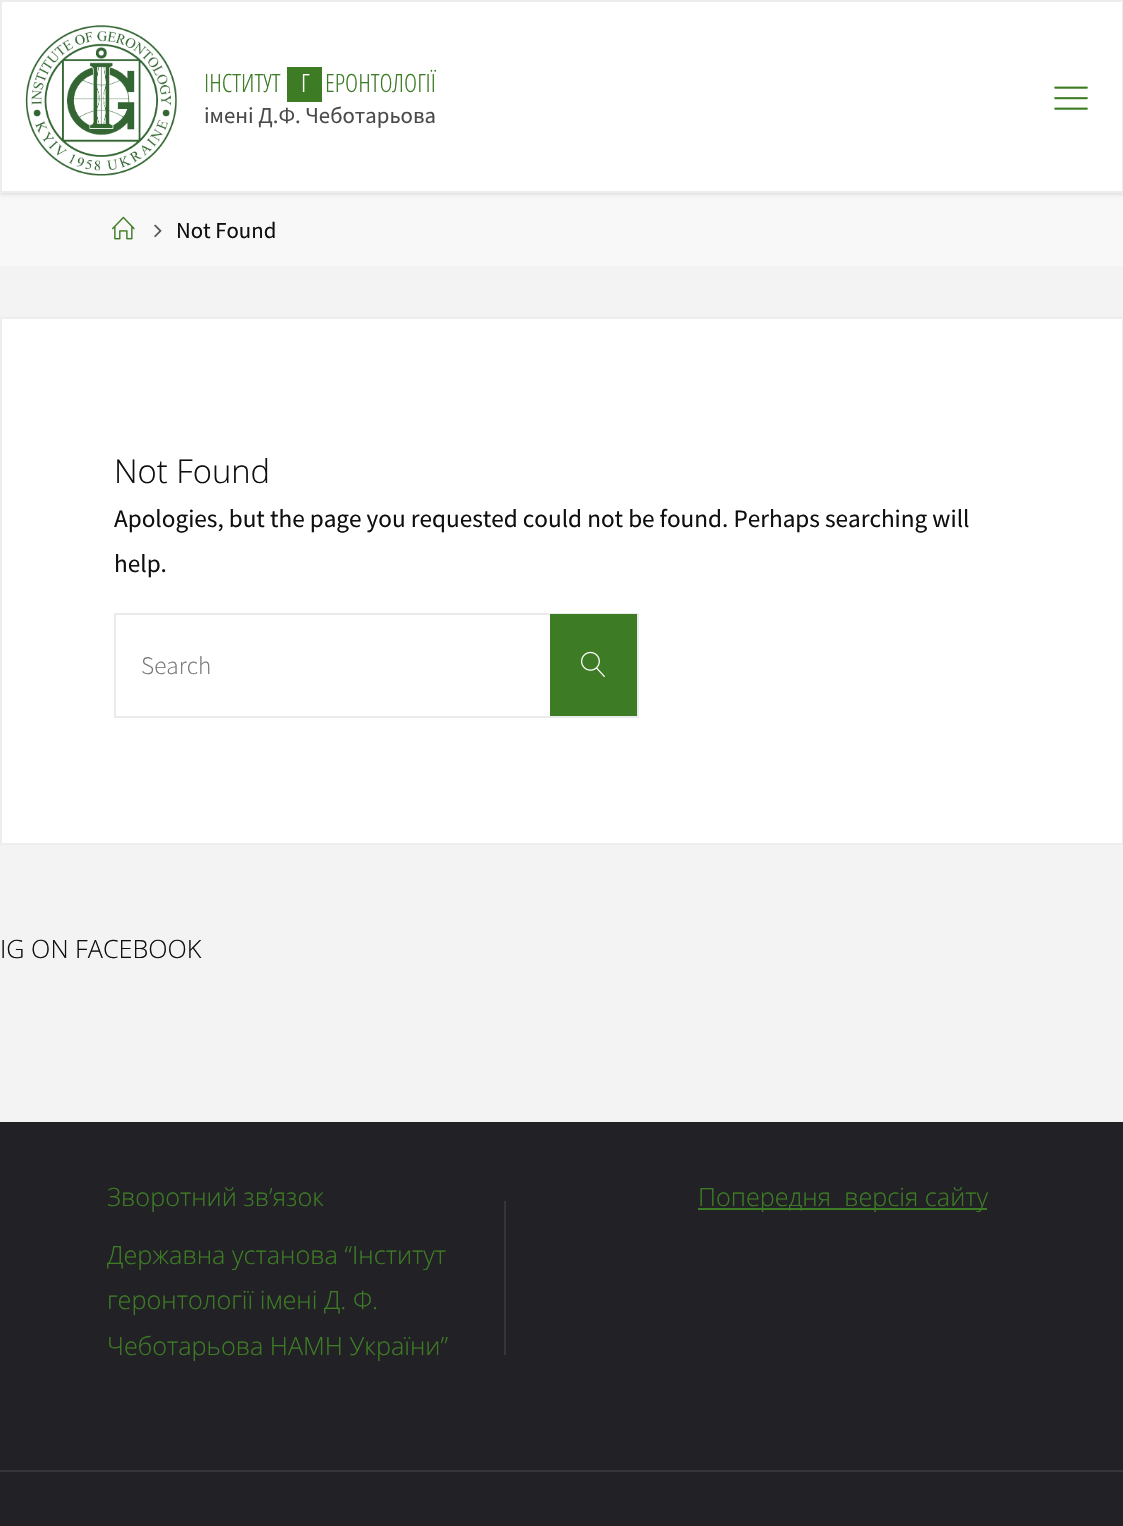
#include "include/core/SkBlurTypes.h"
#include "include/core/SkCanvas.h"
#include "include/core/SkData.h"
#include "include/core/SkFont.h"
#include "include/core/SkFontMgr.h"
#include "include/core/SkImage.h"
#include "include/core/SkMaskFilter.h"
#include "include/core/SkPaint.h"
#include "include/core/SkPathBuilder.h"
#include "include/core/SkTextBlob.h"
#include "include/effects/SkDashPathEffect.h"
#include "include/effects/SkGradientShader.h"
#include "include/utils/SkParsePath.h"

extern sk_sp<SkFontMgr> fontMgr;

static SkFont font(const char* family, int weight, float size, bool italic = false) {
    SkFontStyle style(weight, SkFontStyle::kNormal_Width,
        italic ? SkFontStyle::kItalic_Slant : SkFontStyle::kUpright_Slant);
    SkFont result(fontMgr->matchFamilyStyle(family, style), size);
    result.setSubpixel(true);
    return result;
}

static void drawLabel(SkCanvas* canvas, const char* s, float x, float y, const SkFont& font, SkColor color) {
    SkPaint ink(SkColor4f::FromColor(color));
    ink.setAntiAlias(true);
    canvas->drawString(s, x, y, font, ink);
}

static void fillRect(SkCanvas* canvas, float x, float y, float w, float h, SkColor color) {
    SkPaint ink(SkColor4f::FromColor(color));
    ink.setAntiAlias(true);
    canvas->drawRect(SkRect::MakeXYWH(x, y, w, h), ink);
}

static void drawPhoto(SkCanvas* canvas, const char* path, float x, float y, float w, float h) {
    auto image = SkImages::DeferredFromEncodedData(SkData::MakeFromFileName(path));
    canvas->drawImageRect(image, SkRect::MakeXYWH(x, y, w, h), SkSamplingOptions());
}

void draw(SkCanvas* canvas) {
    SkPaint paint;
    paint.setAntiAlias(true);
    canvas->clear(0xFFF3F3F3);
    fillRect(canvas, 0, 193, 1123, 73, 0xFFF8F8F8);
    paint.setColor(0x33000000);
    paint.setMaskFilter(SkMaskFilter::MakeBlur(kNormal_SkBlurStyle, 2.5f));
    canvas->drawRect(SkRect::MakeXYWH(0, 0, 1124, 193), paint);
    paint.setMaskFilter(nullptr);
    paint.setColor(0xFFFFFFFF);
    canvas->drawRect(SkRect::MakeXYWH(1, 1, 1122, 191), paint);
    paint.setStroke(true);
    paint.setStrokeWidth(2);
    paint.setColor(0xFFEDEDED);
    canvas->drawRect(SkRect::MakeXYWH(1, 1, 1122, 191), paint);
    drawPhoto(canvas, "assets/img1.png", 25, 25, 152, 151);
    SkFont font1 = font("Open Sans Condensed", 300, 25.2f);
    drawLabel(canvas, "ІНСТИТУТ", 204, 92, font1, 0xFF3D7C24);
    fillRect(canvas, 287, 67, 35, 35, 0xFF3D7C24);
    drawLabel(canvas, "Г", 301, 92, font1, 0xFFFFFFFF);
    drawLabel(canvas, "ЕРОНТОЛОГІЇ", 325, 92, font1, 0xFF3D7C24);
    SkFont font2 = font("Source Sans Pro", 400, 22.75f);
    drawLabel(canvas, "імені Д.Ф. Чеботарьова", 204, 123, font2, 0xFF4B4B4B);
    drawPhoto(canvas, "assets/img2.png", 1054, 86, 34, 24);
    drawPhoto(canvas, "assets/img3.png", 112, 216, 23, 24);
    drawPhoto(canvas, "assets/img4.png", 154, 224, 8, 14);
    drawLabel(canvas, "Not Found", 176, 238, font2, 0xFF0F0F0F);
    paint.setStroke(false);
    paint.setColor(0xFFFFFFFF);
    canvas->drawRect(SkRect::MakeXYWH(1, 318, 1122, 526), paint);
    paint.setStroke(true);
    paint.setColor(0xFFEDEDED);
    canvas->drawRect(SkRect::MakeXYWH(1, 318, 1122, 526), paint);
    SkFont font3 = font("Open Sans", 300, 32.75f);
    drawLabel(canvas, "Not Found", 114, 483, font3, 0xFF0F0F0F);
    SkFont font4 = font("Source Sans Pro", 400, 25.2f);
    drawLabel(canvas, "Apologies, but the page you requested could not be found. Perhaps searching will", 114, 527, font4, 0xFF0F0F0F);
    drawLabel(canvas, "help.", 114, 572, font4, 0xFF0F0F0F);
    paint.setColor(0xFFEBEBEB);
    canvas->drawRect(SkRect::MakeXYWH(115, 614, 523, 103), paint);
    fillRect(canvas, 550, 614, 87, 102, 0xFF3D7C24);
    SkFont font5 = font("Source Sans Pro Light", 300, 25.2f);
    drawLabel(canvas, "Search", 141, 674, font5, 0xFF757575);
    drawPhoto(canvas, "assets/img5.png", 581, 651, 24, 27);
    SkFont font6 = font("Open Sans", 300, 25.2f);
    drawLabel(canvas, "IG ON FACEBOOK", 0, 958, font6, 0xFF0F0F0F);
    fillRect(canvas, 0, 1124, 1123, 346, 0xFF222226);
    fillRect(canvas, 0, 1122, 1123, 2, 0xFF202023);
    drawLabel(canvas, "Зворотний зв’язок", 107, 1206, font6, 0xFF3D7C24);
    drawLabel(canvas, "Державна установа “Інститут", 107, 1264, font6, 0xFF3D7C24);
    drawLabel(canvas, "геронтології імені Д. Ф.", 107, 1309, font6, 0xFF3D7C24);
    drawLabel(canvas, "Чеботарьова НАМН України”", 107, 1355, font6, 0xFF3D7C24);
    fillRect(canvas, 504, 1201, 2, 154, 0xFF36363A);
    fillRect(canvas, 698, 1208, 289, 2, 0xFF3D7C24);
    drawLabel(canvas, "Попередня  версія сайту", 698, 1206, font6, 0xFF3D7C24);
    fillRect(canvas, 0, 1472, 1123, 54, 0xFF222226);
    fillRect(canvas, 0, 1470, 1123, 2, 0xFF36363A);
}
